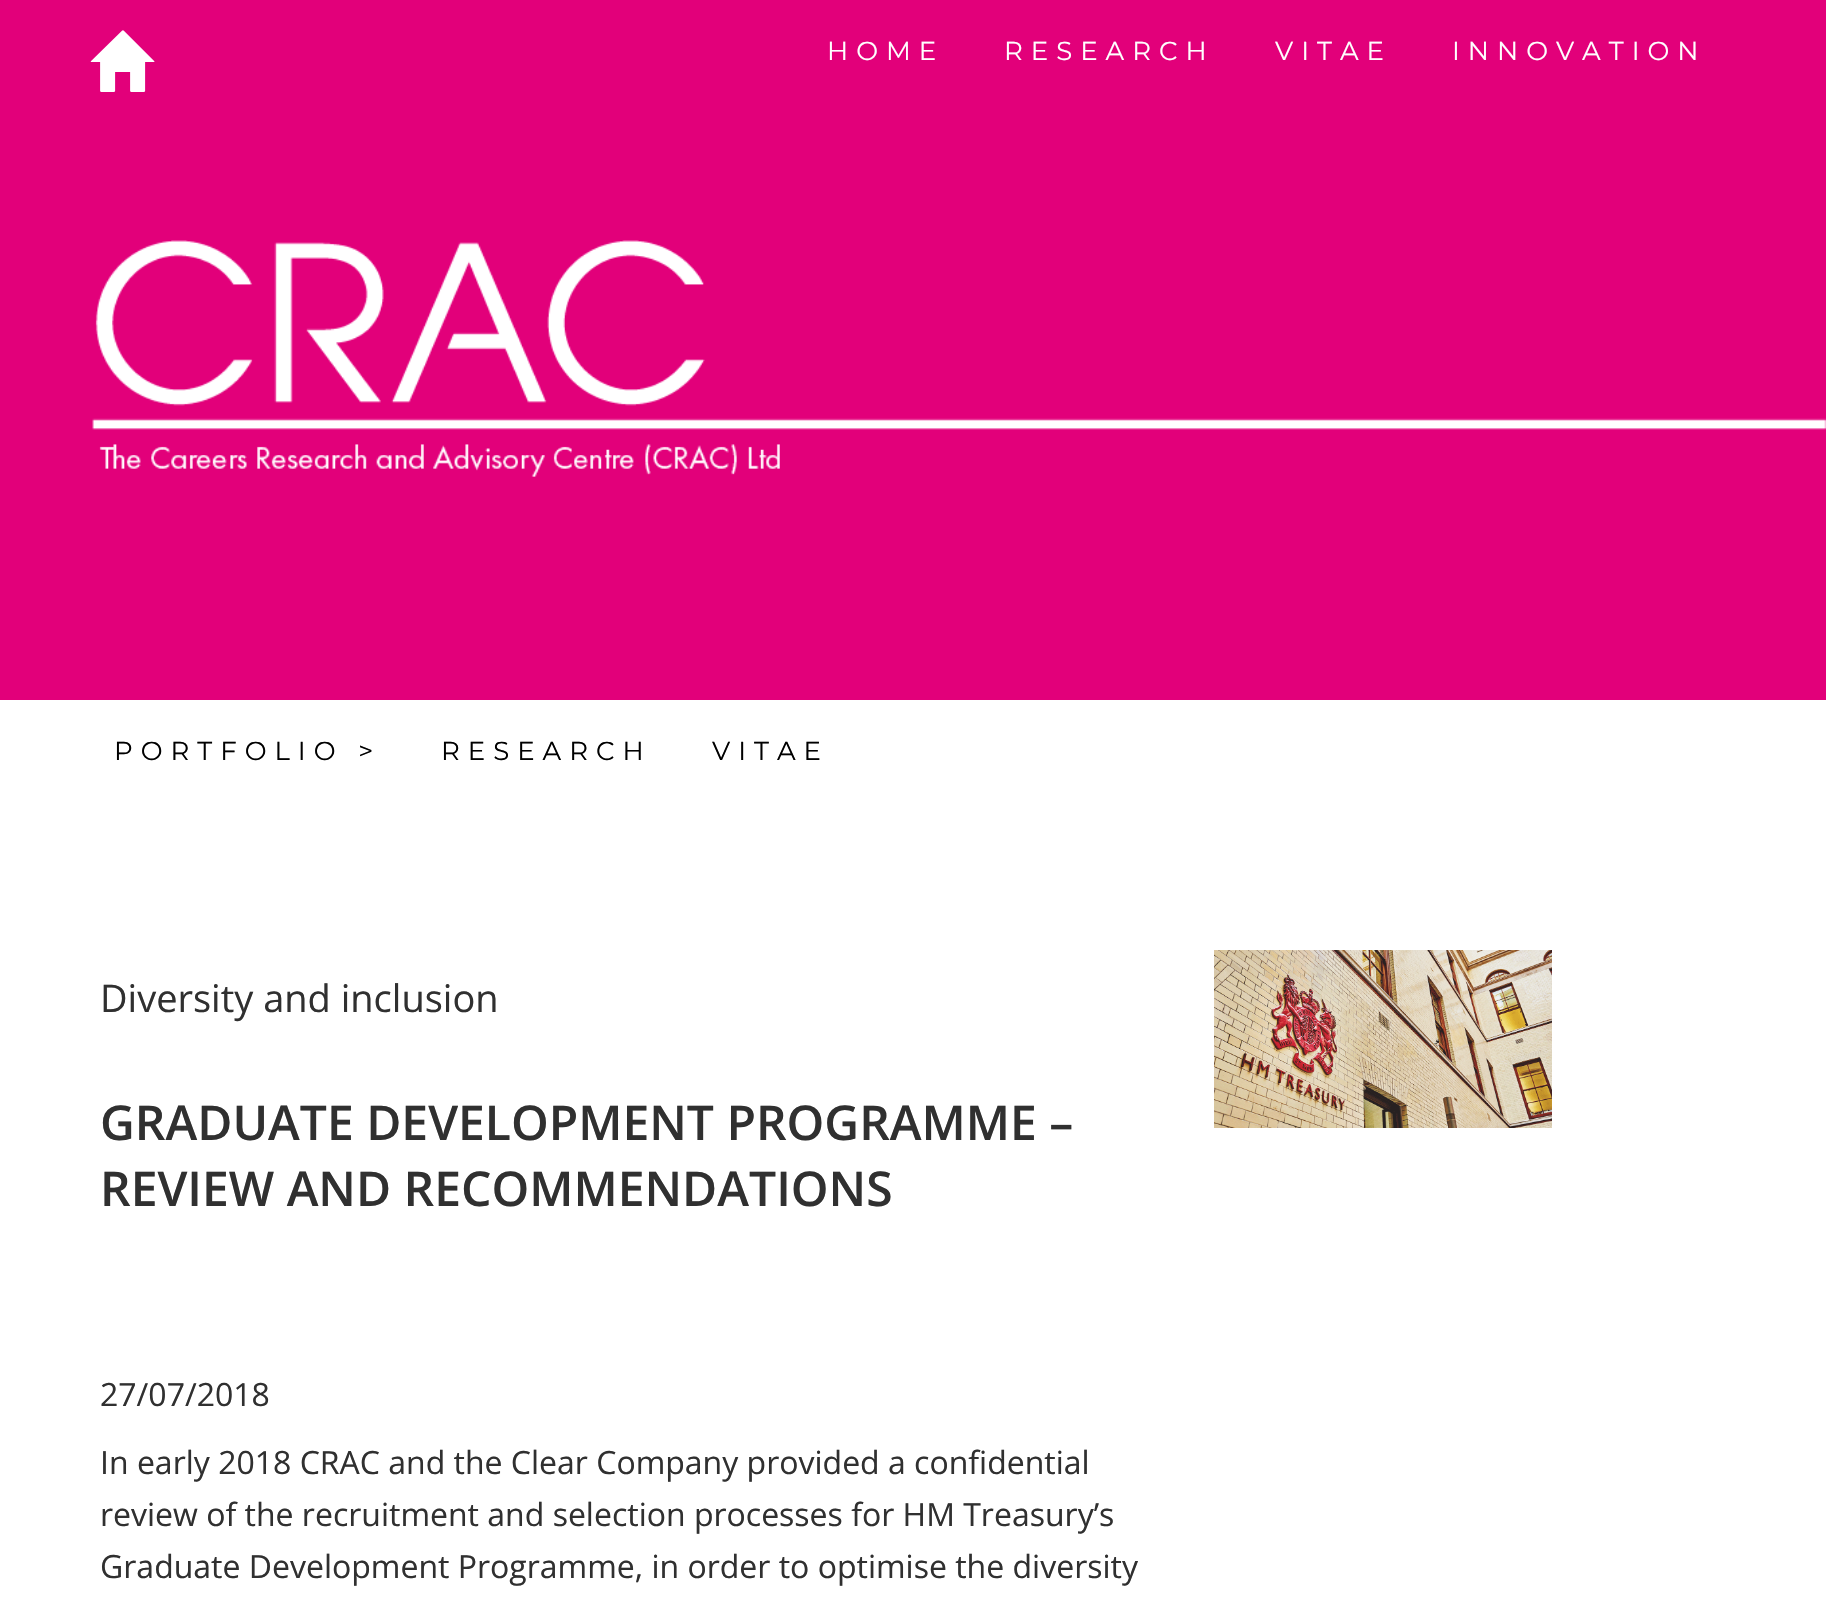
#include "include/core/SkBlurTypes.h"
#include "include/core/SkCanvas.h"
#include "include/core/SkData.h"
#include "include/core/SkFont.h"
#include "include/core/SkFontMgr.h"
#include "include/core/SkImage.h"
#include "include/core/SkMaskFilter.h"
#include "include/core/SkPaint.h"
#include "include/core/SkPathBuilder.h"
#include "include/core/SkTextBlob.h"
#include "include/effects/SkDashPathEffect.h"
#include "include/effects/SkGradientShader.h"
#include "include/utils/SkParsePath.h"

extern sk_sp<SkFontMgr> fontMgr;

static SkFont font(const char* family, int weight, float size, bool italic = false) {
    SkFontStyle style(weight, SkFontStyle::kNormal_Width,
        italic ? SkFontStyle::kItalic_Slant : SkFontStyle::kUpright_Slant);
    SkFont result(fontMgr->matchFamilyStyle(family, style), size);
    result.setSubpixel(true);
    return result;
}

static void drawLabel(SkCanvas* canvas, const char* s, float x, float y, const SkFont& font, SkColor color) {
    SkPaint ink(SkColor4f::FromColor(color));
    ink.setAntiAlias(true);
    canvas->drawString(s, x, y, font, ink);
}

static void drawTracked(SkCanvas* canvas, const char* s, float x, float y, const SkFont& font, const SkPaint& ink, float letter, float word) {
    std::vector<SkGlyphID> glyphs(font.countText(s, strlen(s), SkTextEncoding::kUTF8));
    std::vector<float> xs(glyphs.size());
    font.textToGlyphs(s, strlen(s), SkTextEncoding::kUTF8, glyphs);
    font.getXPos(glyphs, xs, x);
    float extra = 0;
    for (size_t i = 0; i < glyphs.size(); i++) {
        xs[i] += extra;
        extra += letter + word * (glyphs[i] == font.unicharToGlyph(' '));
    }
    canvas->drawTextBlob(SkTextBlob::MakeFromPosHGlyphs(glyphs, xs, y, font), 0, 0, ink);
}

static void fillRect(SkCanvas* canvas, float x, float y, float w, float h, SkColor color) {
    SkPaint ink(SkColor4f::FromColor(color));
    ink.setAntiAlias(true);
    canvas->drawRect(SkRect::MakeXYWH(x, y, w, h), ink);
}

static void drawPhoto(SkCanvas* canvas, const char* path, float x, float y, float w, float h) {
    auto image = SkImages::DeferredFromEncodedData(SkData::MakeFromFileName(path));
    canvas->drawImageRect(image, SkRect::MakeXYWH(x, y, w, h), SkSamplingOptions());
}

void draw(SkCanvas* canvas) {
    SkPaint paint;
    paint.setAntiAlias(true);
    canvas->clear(0xFFFFFFFF);
    fillRect(canvas, 0, 0, 1826, 700, 0xFFE2007A);
    drawPhoto(canvas, "assets/img1.png", 90, 30, 65, 62);
    SkFont font1 = font("Montserrat", 100, 26);
    paint.setColor(0xFFFFFFFF);
    drawTracked(canvas, "HOME", 827, 60, font1, paint, 8, 0);
    drawTracked(canvas, "RESEARCH", 1004, 60, font1, paint, 8, 0);
    drawTracked(canvas, "VITAE", 1275, 60, font1, paint, 8, 0);
    drawTracked(canvas, "INNOVATION", 1452, 60, font1, paint, 8, 0);
    drawPhoto(canvas, "assets/img2.png", 92, 240, 1734, 237);
    paint.setColor(0xFF000000);
    drawTracked(canvas, "PORTFOLIO >", 114, 760, font1, paint, 8, 0);
    drawTracked(canvas, "RESEARCH", 441, 760, font1, paint, 8, 0);
    drawTracked(canvas, "VITAE", 712, 760, font1, paint, 8, 0);
    SkFont font2 = font("Open Sans", 400, 38);
    drawLabel(canvas, "Diversity and inclusion", 100, 1012, font2, 0xFF303030);
    SkFont font3 = font("Open Sans", 600, 48);
    drawLabel(canvas, "GRADUATE DEVELOPMENT PROGRAMME –", 100, 1140, font3, 0xFF303030);
    drawLabel(canvas, "REVIEW AND RECOMMENDATIONS", 100, 1206, font3, 0xFF303030);
    SkFont font4 = font("Open Sans", 400, 32);
    drawLabel(canvas, "27/07/2018", 100, 1406, font4, 0xFF303030);
    drawLabel(canvas, "In early 2018 CRAC and the Clear Company provided a confidential", 100, 1474, font4, 0xFF303030);
    drawLabel(canvas, "review of the recruitment and selection processes for HM Treasury’s", 100, 1526, font4, 0xFF303030);
    drawLabel(canvas, "Graduate Development Programme, in order to optimise the diversity", 100, 1578, font4, 0xFF303030);
    drawPhoto(canvas, "assets/img3.png", 1214, 950, 338, 178);
}
